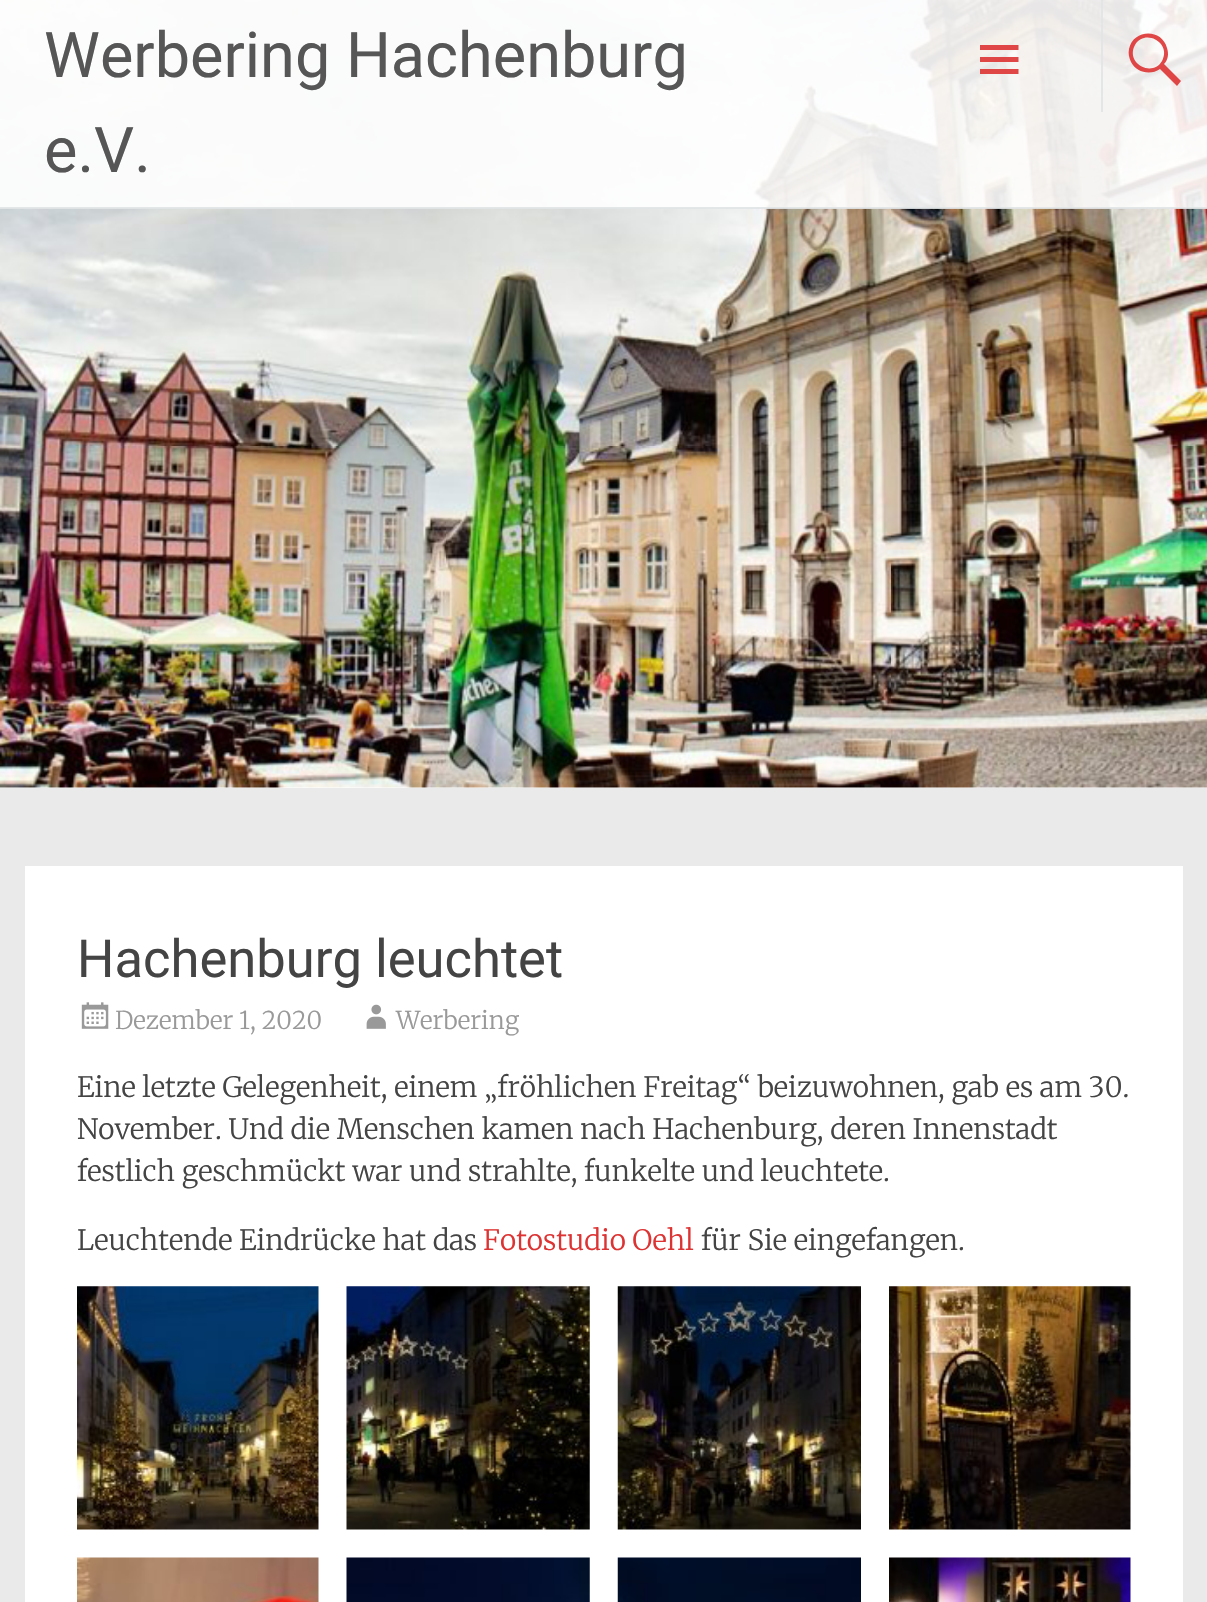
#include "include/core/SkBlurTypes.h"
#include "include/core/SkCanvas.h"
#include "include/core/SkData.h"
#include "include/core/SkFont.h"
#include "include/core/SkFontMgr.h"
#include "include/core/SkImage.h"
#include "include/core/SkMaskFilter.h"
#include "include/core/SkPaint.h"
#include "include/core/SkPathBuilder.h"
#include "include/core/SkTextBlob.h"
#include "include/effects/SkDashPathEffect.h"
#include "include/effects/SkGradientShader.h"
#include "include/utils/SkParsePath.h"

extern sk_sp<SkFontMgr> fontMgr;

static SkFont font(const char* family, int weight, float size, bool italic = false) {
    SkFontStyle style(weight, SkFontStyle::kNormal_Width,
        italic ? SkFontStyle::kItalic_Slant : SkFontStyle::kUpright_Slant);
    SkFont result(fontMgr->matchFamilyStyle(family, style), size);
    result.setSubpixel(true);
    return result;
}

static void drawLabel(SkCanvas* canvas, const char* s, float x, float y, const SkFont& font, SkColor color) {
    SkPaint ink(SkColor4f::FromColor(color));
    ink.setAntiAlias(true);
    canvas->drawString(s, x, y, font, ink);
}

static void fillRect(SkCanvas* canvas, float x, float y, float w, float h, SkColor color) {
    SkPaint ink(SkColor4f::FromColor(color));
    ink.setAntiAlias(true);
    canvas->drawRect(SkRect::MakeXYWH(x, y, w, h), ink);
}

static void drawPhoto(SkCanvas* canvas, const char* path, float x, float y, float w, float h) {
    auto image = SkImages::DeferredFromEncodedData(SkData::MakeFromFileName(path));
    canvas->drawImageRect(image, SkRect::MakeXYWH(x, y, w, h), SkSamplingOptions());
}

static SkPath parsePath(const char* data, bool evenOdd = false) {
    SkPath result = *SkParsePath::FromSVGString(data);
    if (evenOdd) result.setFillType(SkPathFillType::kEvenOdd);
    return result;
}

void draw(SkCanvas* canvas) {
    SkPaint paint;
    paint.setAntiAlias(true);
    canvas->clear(0xFFFFFFFF);
    drawPhoto(canvas, "assets/img1.png", 0, 0, 1207, 788);
    fillRect(canvas, 0, 0, 1207, 208, 0xE6FFFFFF);
    fillRect(canvas, 0, 207, 1207, 2, 0xE6E1E4E6);
    SkFont font1 = font("Roboto", 400, 63);
    drawLabel(canvas, "Werbering Hachenburg", 44, 77, font1, 0xFF565656);
    drawLabel(canvas, "e.V.", 44, 172, font1, 0xFF565656);
    paint.setColor(0xE6DD3333);
    canvas->drawPath(parsePath("M980 74V69H1018.5V74ZM980 45H1018.5V50H980ZM980 62V57H1018.5V62Z"), paint);
    fillRect(canvas, 1101, 0, 2, 112, 0xE6E1E4E6);
    canvas->drawPath(parsePath("M1181 81L1177 86L1160 69C1150 76 1136 72 1131 62C1129 58 1128 53 1129 49C1133 29 1162 28 1167 48C1169 54 1168 60 1164 64ZM1135 45C1125 63 1152 78 1162 61C1172 43 1145 28 1135 45Z"), paint);
    fillRect(canvas, 0, 788, 1207, 814, 0xFFEAEAEA);
    fillRect(canvas, 25, 866, 1158, 736, 0xFFFFFFFF);
    SkFont font2 = font("Roboto", 400, 52.5f);
    drawLabel(canvas, "Hachenburg leuchtet", 77, 977, font2, 0xFF444444);
    drawPhoto(canvas, "assets/img2.png", 81, 1002, 28, 27);
    SkFont font3 = font("Merriweather", 300, 24.5f);
    drawLabel(canvas, "Dezember 1, 2020", 115, 1029, font3, 0xFF999999);
    drawPhoto(canvas, "assets/img3.png", 366, 1004, 20, 25);
    drawLabel(canvas, "Werbering", 396, 1029, font3, 0xFF999999);
    SkFont font4 = font("Merriweather", 300, 28);
    drawLabel(canvas, "Eine letzte Gelegenheit, einem „fröhlichen Freitag“ beizuwohnen, gab es am 30.", 77, 1097, font4, 0xFF444444);
    drawLabel(canvas, "November. Und die Menschen kamen nach Hachenburg, deren Innenstadt", 77, 1139, font4, 0xFF444444);
    drawLabel(canvas, "festlich geschmückt war und strahlte, funkelte und leuchtete.", 77, 1181, font4, 0xFF444444);
    drawLabel(canvas, "Leuchtende Eindrücke hat das", 77, 1250, font4, 0xFF444444);
    drawLabel(canvas, "Fotostudio Oehl", 483, 1250, font4, 0xFFDD3333);
    drawLabel(canvas, "für Sie eingefangen.", 701, 1250, font4, 0xFF444444);
    drawPhoto(canvas, "assets/img4.png", 77, 1286, 242, 244);
    drawPhoto(canvas, "assets/img5.png", 346, 1286, 244, 244);
    drawPhoto(canvas, "assets/img6.png", 617, 1286, 244, 244);
    drawPhoto(canvas, "assets/img7.png", 889, 1286, 242, 244);
    drawPhoto(canvas, "assets/img8.png", 77, 1557, 242, 45);
    drawPhoto(canvas, "assets/img9.png", 346, 1557, 244, 45);
    drawPhoto(canvas, "assets/img10.png", 617, 1557, 244, 45);
    drawPhoto(canvas, "assets/img11.png", 889, 1557, 242, 45);
}
